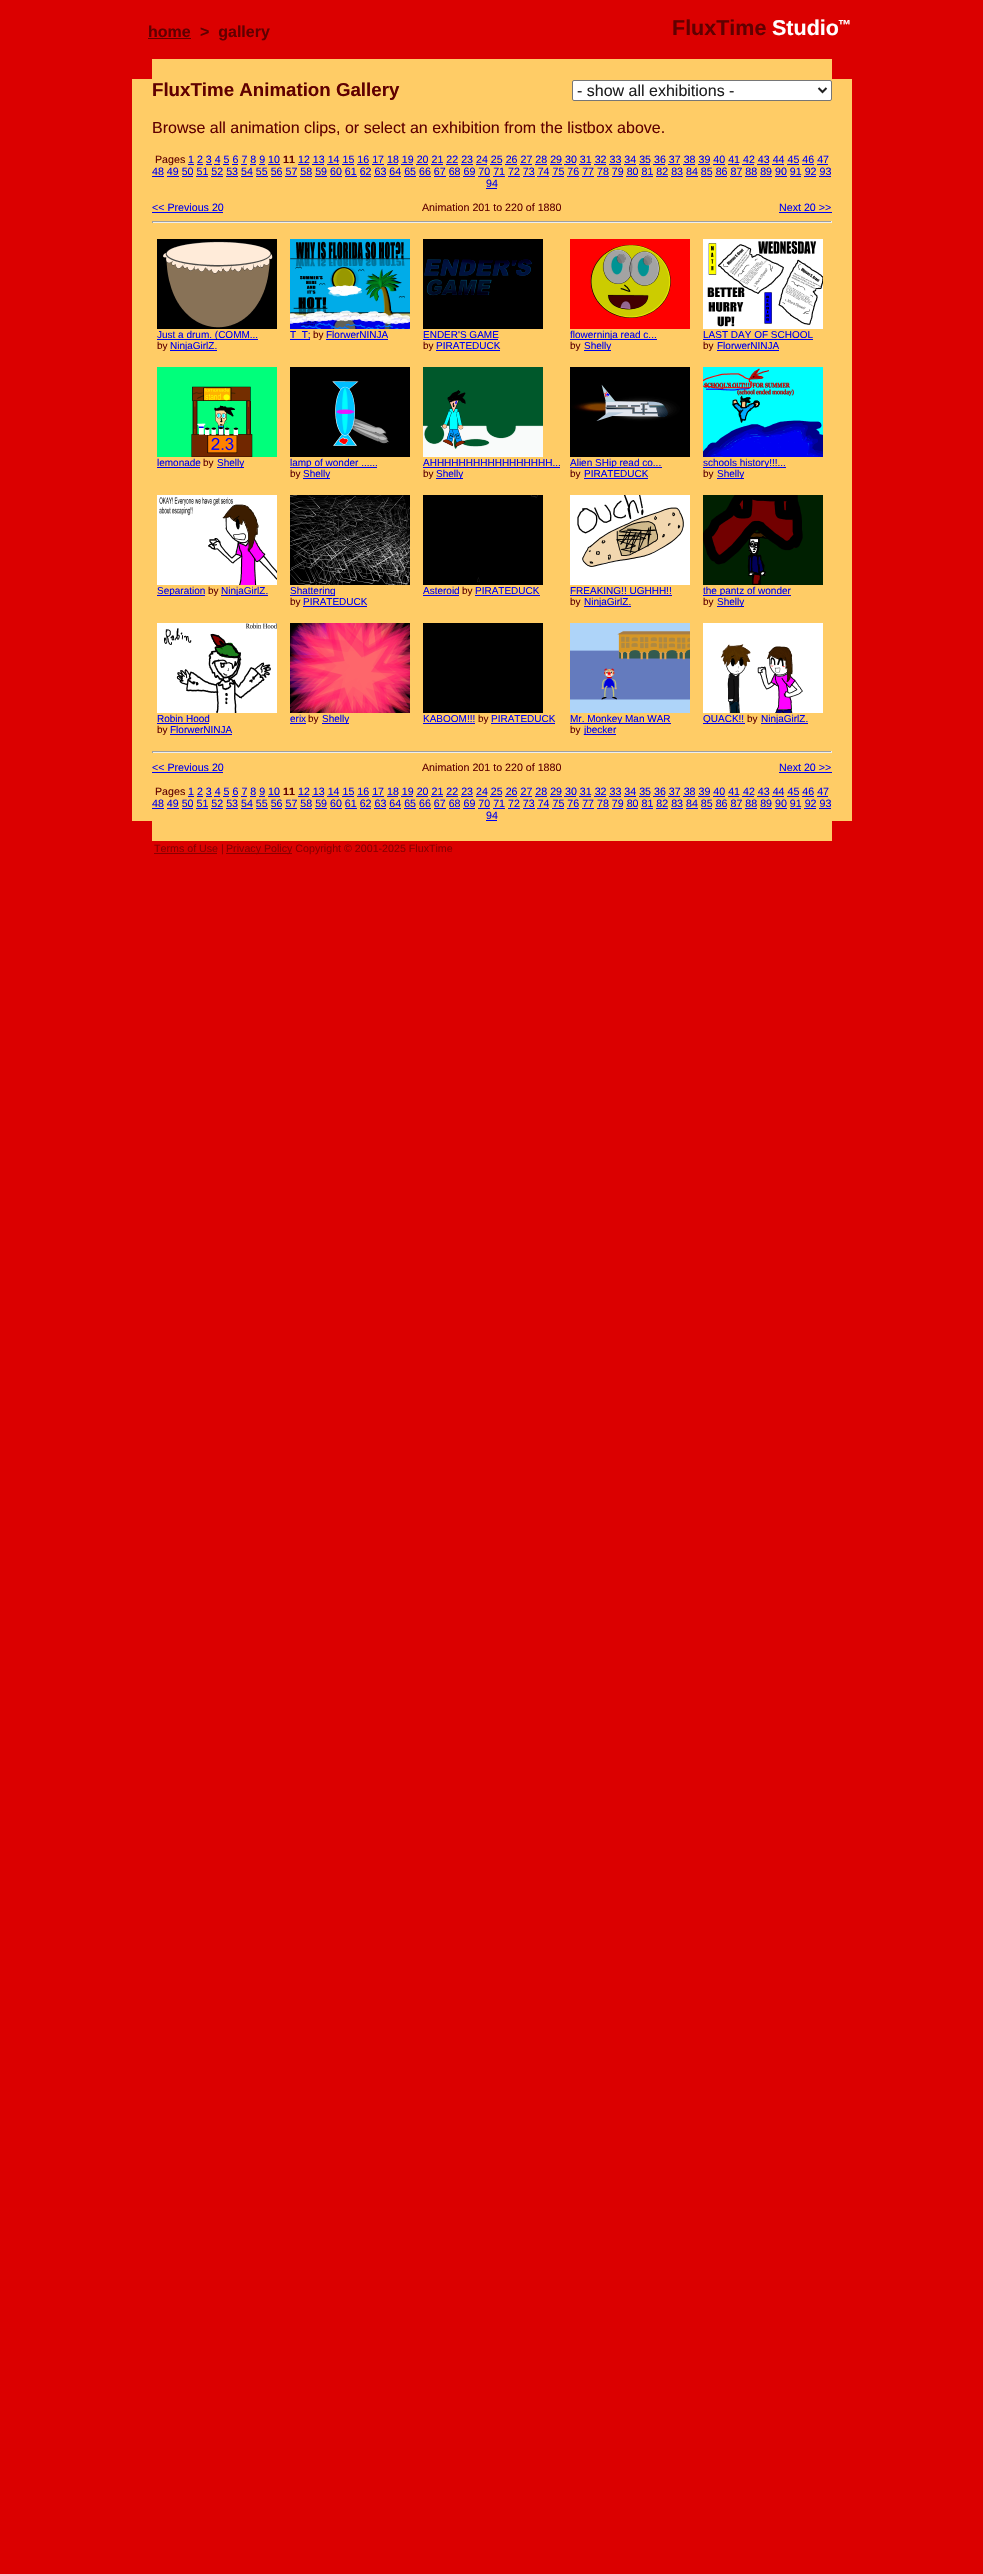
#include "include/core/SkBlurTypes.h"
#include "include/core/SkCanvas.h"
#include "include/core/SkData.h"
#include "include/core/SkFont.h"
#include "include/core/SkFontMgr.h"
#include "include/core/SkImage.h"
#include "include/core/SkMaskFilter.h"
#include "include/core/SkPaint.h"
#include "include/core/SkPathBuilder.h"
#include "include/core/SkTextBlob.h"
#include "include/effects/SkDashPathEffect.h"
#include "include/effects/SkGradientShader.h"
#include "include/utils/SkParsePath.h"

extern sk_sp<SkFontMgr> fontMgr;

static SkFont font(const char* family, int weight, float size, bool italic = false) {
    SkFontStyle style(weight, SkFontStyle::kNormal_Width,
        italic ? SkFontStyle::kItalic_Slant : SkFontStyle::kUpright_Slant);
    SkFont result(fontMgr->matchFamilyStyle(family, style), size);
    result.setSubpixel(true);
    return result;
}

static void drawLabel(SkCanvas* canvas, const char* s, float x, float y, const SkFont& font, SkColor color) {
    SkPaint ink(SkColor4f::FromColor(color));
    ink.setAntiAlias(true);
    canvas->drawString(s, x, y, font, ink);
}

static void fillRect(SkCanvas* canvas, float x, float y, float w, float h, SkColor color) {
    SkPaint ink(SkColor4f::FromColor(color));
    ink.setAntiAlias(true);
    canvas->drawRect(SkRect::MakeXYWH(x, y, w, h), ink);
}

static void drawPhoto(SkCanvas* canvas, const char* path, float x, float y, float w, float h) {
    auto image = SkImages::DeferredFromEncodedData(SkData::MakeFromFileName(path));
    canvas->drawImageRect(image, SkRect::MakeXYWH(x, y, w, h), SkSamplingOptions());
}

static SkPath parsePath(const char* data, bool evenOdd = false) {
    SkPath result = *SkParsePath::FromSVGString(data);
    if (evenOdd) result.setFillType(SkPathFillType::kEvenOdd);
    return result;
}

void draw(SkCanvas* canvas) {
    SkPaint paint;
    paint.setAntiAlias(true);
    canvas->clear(0xFFDB0000);
    SkFont font1 = font("Liberation Sans", 700, 16);
    drawLabel(canvas, "home", 148, 37, font1, 0xFF600000);
    fillRect(canvas, 148, 38, 43, 1, 0xFF600000);
    drawLabel(canvas, ">  gallery", 200, 37, font1, 0xFF600000);
    SkFont font2 = font("Liberation Sans", 700, 21.5f);
    drawLabel(canvas, "FluxTime", 672, 35, font2, 0xFF600000);
    drawLabel(canvas, "Studio", 772, 35, font2, 0xFFFFFFFF);
    SkFont font3 = font("Liberation Sans", 700, 13);
    drawLabel(canvas, "™", 838, 29, font3, 0xFFFFFFFF);
    fillRect(canvas, 152, 59, 680, 20, 0xFFFFCC66);
    fillRect(canvas, 132, 79, 720, 742, 0xFFFFCC66);
    SkFont font4 = font("Liberation Sans", 700, 18.7f);
    drawLabel(canvas, "FluxTime Animation Gallery", 152, 96, font4, 0xFF600000);
    paint.setColor(0xFFFFFFFF);
    canvas->drawRoundRect(SkRect::MakeXYWH(572.5f, 80.5f, 259, 20), 1.5f, 1.5f, paint);
    paint.setStroke(true);
    paint.setStrokeWidth(1);
    paint.setColor(0xFF767676);
    canvas->drawRoundRect(SkRect::MakeXYWH(572.5f, 80.5f, 259, 20), 1.5f, 1.5f, paint);
    paint.setStrokeWidth(2);
    paint.setColor(0xFF202020);
    canvas->drawPath(parsePath("M818.5 88L822.5 92L826.5 88"), paint);
    SkFont font5 = font("Liberation Sans", 400, 16);
    drawLabel(canvas, "- show all exhibitions -", 577, 96, font5, 0xFF202020);
    drawLabel(canvas, "Browse all animation clips, or select an exhibition from the listbox above.", 152, 133, font5, 0xFF600000);
    SkFont font6 = font("Liberation Sans", 400, 10.67f);
    drawLabel(canvas, "Pages", 155, 163, font6, 0xFF600000);
    drawLabel(canvas, "1 2 3 4 5 6 7 8 9 10", 188, 163, font6, 0xFF0000EE);
    fillRect(canvas, 188, 164, 6, 1, 0xFF0000EE);
    SkFont font7 = font("Liberation Sans", 700, 10.67f);
    drawLabel(canvas, "11", 283, 163, font7, 0xFF600000);
    drawLabel(canvas, "12 13 14 15 16 17 18 19 20 21 22 23 24 25 26 27 28 29 30 31 32 33 34 35 36 37 38 39 40 41 42 43 44 45 46 47", 298, 163, font6, 0xFF0000EE);
    fillRect(canvas, 298, 164, 11, 1, 0xFF0000EE);
    fillRect(canvas, 197, 164, 6, 1, 0xFF0000EE);
    fillRect(canvas, 206, 164, 6, 1, 0xFF0000EE);
    fillRect(canvas, 214, 164, 6, 1, 0xFF0000EE);
    fillRect(canvas, 223, 164, 6, 1, 0xFF0000EE);
    fillRect(canvas, 232, 164, 6, 1, 0xFF0000EE);
    fillRect(canvas, 241, 164, 6, 1, 0xFF0000EE);
    fillRect(canvas, 250, 164, 6, 1, 0xFF0000EE);
    fillRect(canvas, 259, 164, 6, 1, 0xFF0000EE);
    fillRect(canvas, 268, 164, 12, 1, 0xFF0000EE);
    fillRect(canvas, 312, 164, 12, 1, 0xFF0000EE);
    fillRect(canvas, 327, 164, 12, 1, 0xFF0000EE);
    fillRect(canvas, 342, 164, 12, 1, 0xFF0000EE);
    fillRect(canvas, 357, 164, 12, 1, 0xFF0000EE);
    fillRect(canvas, 372, 164, 12, 1, 0xFF0000EE);
    fillRect(canvas, 387, 164, 11, 1, 0xFF0000EE);
    fillRect(canvas, 401, 164, 12, 1, 0xFF0000EE);
    fillRect(canvas, 416, 164, 12, 1, 0xFF0000EE);
    fillRect(canvas, 431, 164, 12, 1, 0xFF0000EE);
    fillRect(canvas, 446, 164, 12, 1, 0xFF0000EE);
    fillRect(canvas, 461, 164, 12, 1, 0xFF0000EE);
    fillRect(canvas, 476, 164, 11, 1, 0xFF0000EE);
    fillRect(canvas, 490, 164, 12, 1, 0xFF0000EE);
    fillRect(canvas, 505, 164, 12, 1, 0xFF0000EE);
    fillRect(canvas, 520, 164, 12, 1, 0xFF0000EE);
    fillRect(canvas, 535, 164, 12, 1, 0xFF0000EE);
    fillRect(canvas, 550, 164, 12, 1, 0xFF0000EE);
    fillRect(canvas, 564, 164, 12, 1, 0xFF0000EE);
    fillRect(canvas, 579, 164, 12, 1, 0xFF0000EE);
    fillRect(canvas, 594, 164, 12, 1, 0xFF0000EE);
    fillRect(canvas, 609, 164, 12, 1, 0xFF0000EE);
    fillRect(canvas, 624, 164, 12, 1, 0xFF0000EE);
    fillRect(canvas, 639, 164, 11, 1, 0xFF0000EE);
    fillRect(canvas, 653, 164, 12, 1, 0xFF0000EE);
    fillRect(canvas, 668, 164, 12, 1, 0xFF0000EE);
    fillRect(canvas, 683, 164, 12, 1, 0xFF0000EE);
    fillRect(canvas, 698, 164, 12, 1, 0xFF0000EE);
    fillRect(canvas, 713, 164, 12, 1, 0xFF0000EE);
    fillRect(canvas, 728, 164, 11, 1, 0xFF0000EE);
    fillRect(canvas, 742, 164, 12, 1, 0xFF0000EE);
    fillRect(canvas, 757, 164, 12, 1, 0xFF0000EE);
    fillRect(canvas, 772, 164, 12, 1, 0xFF0000EE);
    fillRect(canvas, 787, 164, 12, 1, 0xFF0000EE);
    fillRect(canvas, 802, 164, 12, 1, 0xFF0000EE);
    fillRect(canvas, 817, 164, 11, 1, 0xFF0000EE);
    drawLabel(canvas, "48 49 50 51 52 53 54 55 56 57 58 59 60 61 62 63 64 65 66 67 68 69 70 71 72 73 74 75 76 77 78 79 80 81 82 83 84 85 86 87 88 89 90 91 92 93", 152, 175, font6, 0xFF0000EE);
    fillRect(canvas, 152, 176, 12, 1, 0xFF0000EE);
    fillRect(canvas, 167, 176, 12, 1, 0xFF0000EE);
    fillRect(canvas, 182, 176, 11, 1, 0xFF0000EE);
    fillRect(canvas, 196, 176, 12, 1, 0xFF0000EE);
    fillRect(canvas, 211, 176, 12, 1, 0xFF0000EE);
    fillRect(canvas, 226, 176, 12, 1, 0xFF0000EE);
    fillRect(canvas, 241, 176, 12, 1, 0xFF0000EE);
    fillRect(canvas, 256, 176, 12, 1, 0xFF0000EE);
    fillRect(canvas, 271, 176, 11, 1, 0xFF0000EE);
    fillRect(canvas, 285, 176, 12, 1, 0xFF0000EE);
    fillRect(canvas, 300, 176, 12, 1, 0xFF0000EE);
    fillRect(canvas, 315, 176, 12, 1, 0xFF0000EE);
    fillRect(canvas, 330, 176, 12, 1, 0xFF0000EE);
    fillRect(canvas, 345, 176, 12, 1, 0xFF0000EE);
    fillRect(canvas, 360, 176, 11, 1, 0xFF0000EE);
    fillRect(canvas, 374, 176, 12, 1, 0xFF0000EE);
    fillRect(canvas, 389, 176, 12, 1, 0xFF0000EE);
    fillRect(canvas, 404, 176, 12, 1, 0xFF0000EE);
    fillRect(canvas, 419, 176, 12, 1, 0xFF0000EE);
    fillRect(canvas, 434, 176, 12, 1, 0xFF0000EE);
    fillRect(canvas, 449, 176, 11, 1, 0xFF0000EE);
    fillRect(canvas, 463, 176, 12, 1, 0xFF0000EE);
    fillRect(canvas, 478, 176, 12, 1, 0xFF0000EE);
    fillRect(canvas, 493, 176, 12, 1, 0xFF0000EE);
    fillRect(canvas, 508, 176, 12, 1, 0xFF0000EE);
    fillRect(canvas, 523, 176, 12, 1, 0xFF0000EE);
    fillRect(canvas, 537, 176, 12, 1, 0xFF0000EE);
    fillRect(canvas, 552, 176, 12, 1, 0xFF0000EE);
    fillRect(canvas, 567, 176, 12, 1, 0xFF0000EE);
    fillRect(canvas, 582, 176, 12, 1, 0xFF0000EE);
    fillRect(canvas, 597, 176, 12, 1, 0xFF0000EE);
    fillRect(canvas, 612, 176, 11, 1, 0xFF0000EE);
    fillRect(canvas, 626, 176, 12, 1, 0xFF0000EE);
    fillRect(canvas, 641, 176, 12, 1, 0xFF0000EE);
    fillRect(canvas, 656, 176, 12, 1, 0xFF0000EE);
    fillRect(canvas, 671, 176, 12, 1, 0xFF0000EE);
    fillRect(canvas, 686, 176, 12, 1, 0xFF0000EE);
    fillRect(canvas, 701, 176, 11, 1, 0xFF0000EE);
    fillRect(canvas, 715, 176, 12, 1, 0xFF0000EE);
    fillRect(canvas, 730, 176, 12, 1, 0xFF0000EE);
    fillRect(canvas, 745, 176, 12, 1, 0xFF0000EE);
    fillRect(canvas, 760, 176, 12, 1, 0xFF0000EE);
    fillRect(canvas, 775, 176, 12, 1, 0xFF0000EE);
    fillRect(canvas, 790, 176, 11, 1, 0xFF0000EE);
    fillRect(canvas, 804, 176, 12, 1, 0xFF0000EE);
    fillRect(canvas, 819, 176, 12, 1, 0xFF0000EE);
    drawLabel(canvas, "94", 486, 187, font6, 0xFF0000EE);
    fillRect(canvas, 486, 188, 11, 1, 0xFF0000EE);
    drawLabel(canvas, "<< Previous 20", 152, 211, font6, 0xFF0000EE);
    fillRect(canvas, 152, 212, 71, 1, 0xFF0000EE);
    drawLabel(canvas, "Animation 201 to 220 of 1880", 422, 211, font6, 0xFF600000);
    drawLabel(canvas, "Next 20 >>", 779, 211, font6, 0xFF0000EE);
    fillRect(canvas, 779, 212, 53, 1, 0xFF0000EE);
    fillRect(canvas, 152, 221, 680, 1, 0xFF9F9F9F);
    fillRect(canvas, 831, 221, 1, 2, 0xFFEEEEEE);
    fillRect(canvas, 152, 222, 680, 1, 0xFFEEEEEE);
    fillRect(canvas, 152, 221, 1, 2, 0xFF9F9F9F);
    drawPhoto(canvas, "assets/img1.png", 157, 239, 120, 90);
    fillRect(canvas, 157, 339, 101, 1, 0xFF0000EE);
    SkFont font8 = font("Liberation Sans", 400, 10);
    drawLabel(canvas, "Just a drum. (COMM...", 157, 338, font8, 0xFF0000EE);
    drawLabel(canvas, "by", 157, 349, font8, 0xFF600000);
    fillRect(canvas, 170, 350, 47, 1, 0xFF0000EE);
    drawLabel(canvas, "NinjaGirlZ.", 170, 349, font8, 0xFF0000EE);
    drawPhoto(canvas, "assets/img2.png", 290, 239, 120, 90);
    fillRect(canvas, 290, 339, 20, 1, 0xFF0000EE);
    drawLabel(canvas, "T_T;", 290, 338, font8, 0xFF0000EE);
    drawLabel(canvas, "by", 313, 338, font8, 0xFF600000);
    drawLabel(canvas, "FlorwerNINJA", 326, 338, font8, 0xFF0000EE);
    fillRect(canvas, 326, 339, 62, 1, 0xFF0000EE);
    drawPhoto(canvas, "assets/img3.png", 423, 239, 120, 90);
    drawLabel(canvas, "ENDER'S GAME", 423, 338, font8, 0xFF0000EE);
    fillRect(canvas, 423, 339, 75, 1, 0xFF0000EE);
    drawLabel(canvas, "by", 423, 349, font8, 0xFF600000);
    drawLabel(canvas, "PIRATEDUCK", 436, 349, font8, 0xFF0000EE);
    fillRect(canvas, 436, 350, 64, 1, 0xFF0000EE);
    drawPhoto(canvas, "assets/img4.png", 570, 239, 120, 90);
    fillRect(canvas, 570, 339, 87, 1, 0xFF0000EE);
    drawLabel(canvas, "flowerninja read c...", 570, 338, font8, 0xFF0000EE);
    drawLabel(canvas, "by", 570, 349, font8, 0xFF600000);
    fillRect(canvas, 584, 350, 27, 1, 0xFF0000EE);
    drawLabel(canvas, "Shelly", 584, 349, font8, 0xFF0000EE);
    drawPhoto(canvas, "assets/img5.png", 703, 239, 120, 90);
    drawLabel(canvas, "LAST DAY OF SCHOOL", 703, 338, font8, 0xFF0000EE);
    fillRect(canvas, 703, 339, 110, 1, 0xFF0000EE);
    drawLabel(canvas, "by", 703, 349, font8, 0xFF600000);
    drawLabel(canvas, "FlorwerNINJA", 717, 349, font8, 0xFF0000EE);
    fillRect(canvas, 717, 350, 62, 1, 0xFF0000EE);
    drawPhoto(canvas, "assets/img6.png", 157, 367, 120, 90);
    drawLabel(canvas, "lemonade", 157, 466, font8, 0xFF0000EE);
    fillRect(canvas, 157, 467, 43, 1, 0xFF0000EE);
    drawLabel(canvas, "by", 203, 466, font8, 0xFF600000);
    fillRect(canvas, 217, 467, 27, 1, 0xFF0000EE);
    drawLabel(canvas, "Shelly", 217, 466, font8, 0xFF0000EE);
    drawPhoto(canvas, "assets/img7.png", 290, 367, 120, 90);
    fillRect(canvas, 290, 467, 87, 1, 0xFF0000EE);
    drawLabel(canvas, "lamp of wonder ......", 290, 466, font8, 0xFF0000EE);
    drawLabel(canvas, "by", 290, 477, font8, 0xFF600000);
    fillRect(canvas, 303, 478, 27, 1, 0xFF0000EE);
    drawLabel(canvas, "Shelly", 303, 477, font8, 0xFF0000EE);
    drawPhoto(canvas, "assets/img8.png", 423, 367, 120, 90);
    drawLabel(canvas, "AHHHHHHHHHHHHHHHHH...", 423, 466, font8, 0xFF0000EE);
    fillRect(canvas, 423, 467, 137, 1, 0xFF0000EE);
    drawLabel(canvas, "by", 423, 477, font8, 0xFF600000);
    fillRect(canvas, 436, 478, 27, 1, 0xFF0000EE);
    drawLabel(canvas, "Shelly", 436, 477, font8, 0xFF0000EE);
    drawPhoto(canvas, "assets/img9.png", 570, 367, 120, 90);
    fillRect(canvas, 570, 467, 92, 1, 0xFF0000EE);
    drawLabel(canvas, "Alien SHip read co...", 570, 466, font8, 0xFF0000EE);
    drawLabel(canvas, "by", 570, 477, font8, 0xFF600000);
    drawLabel(canvas, "PIRATEDUCK", 584, 477, font8, 0xFF0000EE);
    fillRect(canvas, 584, 478, 64, 1, 0xFF0000EE);
    drawPhoto(canvas, "assets/img10.png", 703, 367, 120, 90);
    fillRect(canvas, 703, 467, 83, 1, 0xFF0000EE);
    drawLabel(canvas, "schools history!!!...", 703, 466, font8, 0xFF0000EE);
    drawLabel(canvas, "by", 703, 477, font8, 0xFF600000);
    fillRect(canvas, 717, 478, 27, 1, 0xFF0000EE);
    drawLabel(canvas, "Shelly", 717, 477, font8, 0xFF0000EE);
    drawPhoto(canvas, "assets/img11.png", 157, 495, 120, 90);
    fillRect(canvas, 157, 595, 48, 1, 0xFF0000EE);
    drawLabel(canvas, "Separation", 157, 594, font8, 0xFF0000EE);
    drawLabel(canvas, "by", 208, 594, font8, 0xFF600000);
    fillRect(canvas, 221, 595, 47, 1, 0xFF0000EE);
    drawLabel(canvas, "NinjaGirlZ.", 221, 594, font8, 0xFF0000EE);
    drawPhoto(canvas, "assets/img12.png", 290, 495, 120, 90);
    fillRect(canvas, 290, 595, 45, 1, 0xFF0000EE);
    drawLabel(canvas, "Shattering", 290, 594, font8, 0xFF0000EE);
    drawLabel(canvas, "by", 290, 605, font8, 0xFF600000);
    drawLabel(canvas, "PIRATEDUCK", 303, 605, font8, 0xFF0000EE);
    fillRect(canvas, 303, 606, 64, 1, 0xFF0000EE);
    drawPhoto(canvas, "assets/img13.png", 423, 495, 120, 90);
    drawLabel(canvas, "Asteroid", 423, 594, font8, 0xFF0000EE);
    fillRect(canvas, 423, 595, 36, 1, 0xFF0000EE);
    drawLabel(canvas, "by", 462, 594, font8, 0xFF600000);
    drawLabel(canvas, "PIRATEDUCK", 475, 594, font8, 0xFF0000EE);
    fillRect(canvas, 475, 595, 65, 1, 0xFF0000EE);
    drawPhoto(canvas, "assets/img14.png", 570, 495, 120, 90);
    drawLabel(canvas, "FREAKING!! UGHHH!!", 570, 594, font8, 0xFF0000EE);
    fillRect(canvas, 570, 595, 102, 1, 0xFF0000EE);
    drawLabel(canvas, "by", 570, 605, font8, 0xFF600000);
    fillRect(canvas, 584, 606, 47, 1, 0xFF0000EE);
    drawLabel(canvas, "NinjaGirlZ.", 584, 605, font8, 0xFF0000EE);
    drawPhoto(canvas, "assets/img15.png", 703, 495, 120, 90);
    fillRect(canvas, 703, 595, 88, 1, 0xFF0000EE);
    drawLabel(canvas, "the pantz of wonder", 703, 594, font8, 0xFF0000EE);
    drawLabel(canvas, "by", 703, 605, font8, 0xFF600000);
    fillRect(canvas, 717, 606, 27, 1, 0xFF0000EE);
    drawLabel(canvas, "Shelly", 717, 605, font8, 0xFF0000EE);
    drawPhoto(canvas, "assets/img16.png", 157, 623, 120, 90);
    drawLabel(canvas, "Robin Hood", 157, 722, font8, 0xFF0000EE);
    fillRect(canvas, 157, 723, 52, 1, 0xFF0000EE);
    drawLabel(canvas, "by", 157, 733, font8, 0xFF600000);
    drawLabel(canvas, "FlorwerNINJA", 170, 733, font8, 0xFF0000EE);
    fillRect(canvas, 170, 734, 62, 1, 0xFF0000EE);
    drawPhoto(canvas, "assets/img17.png", 290, 623, 120, 90);
    drawLabel(canvas, "erix", 290, 722, font8, 0xFF0000EE);
    fillRect(canvas, 290, 723, 16, 1, 0xFF0000EE);
    drawLabel(canvas, "by", 308, 722, font8, 0xFF600000);
    fillRect(canvas, 322, 723, 27, 1, 0xFF0000EE);
    drawLabel(canvas, "Shelly", 322, 722, font8, 0xFF0000EE);
    fillRect(canvas, 423, 623, 120, 90, 0xFF000000);
    drawLabel(canvas, "KABOOM!!!", 423, 722, font8, 0xFF0000EE);
    fillRect(canvas, 423, 723, 52, 1, 0xFF0000EE);
    drawLabel(canvas, "by", 478, 722, font8, 0xFF600000);
    drawLabel(canvas, "PIRATEDUCK", 491, 722, font8, 0xFF0000EE);
    fillRect(canvas, 491, 723, 64, 1, 0xFF0000EE);
    drawPhoto(canvas, "assets/img18.png", 570, 623, 120, 90);
    fillRect(canvas, 570, 723, 101, 1, 0xFF0000EE);
    drawLabel(canvas, "Mr. Monkey Man WAR", 570, 722, font8, 0xFF0000EE);
    drawLabel(canvas, "by", 570, 733, font8, 0xFF600000);
    fillRect(canvas, 584, 734, 32, 1, 0xFF0000EE);
    drawLabel(canvas, "jbecker", 584, 733, font8, 0xFF0000EE);
    drawPhoto(canvas, "assets/img19.png", 703, 623, 120, 90);
    fillRect(canvas, 703, 723, 42, 1, 0xFF0000EE);
    drawLabel(canvas, "QUACK!!", 703, 722, font8, 0xFF0000EE);
    drawLabel(canvas, "by", 747, 722, font8, 0xFF600000);
    fillRect(canvas, 761, 723, 47, 1, 0xFF0000EE);
    drawLabel(canvas, "NinjaGirlZ.", 761, 722, font8, 0xFF0000EE);
    fillRect(canvas, 152, 751, 680, 1, 0xFF9F9F9F);
    fillRect(canvas, 831, 751, 1, 2, 0xFFEEEEEE);
    fillRect(canvas, 152, 752, 680, 1, 0xFFEEEEEE);
    fillRect(canvas, 152, 751, 1, 2, 0xFF9F9F9F);
    drawLabel(canvas, "<< Previous 20", 152, 771, font6, 0xFF0000EE);
    fillRect(canvas, 152, 772, 71, 1, 0xFF0000EE);
    drawLabel(canvas, "Animation 201 to 220 of 1880", 422, 771, font6, 0xFF600000);
    drawLabel(canvas, "Next 20 >>", 779, 771, font6, 0xFF0000EE);
    fillRect(canvas, 779, 772, 53, 1, 0xFF0000EE);
    drawLabel(canvas, "Pages", 155, 795, font6, 0xFF600000);
    drawLabel(canvas, "1 2 3 4 5 6 7 8 9 10", 188, 795, font6, 0xFF0000EE);
    fillRect(canvas, 188, 796, 6, 1, 0xFF0000EE);
    drawLabel(canvas, "11", 283, 795, font7, 0xFF600000);
    drawLabel(canvas, "12 13 14 15 16 17 18 19 20 21 22 23 24 25 26 27 28 29 30 31 32 33 34 35 36 37 38 39 40 41 42 43 44 45 46 47", 298, 795, font6, 0xFF0000EE);
    fillRect(canvas, 298, 796, 11, 1, 0xFF0000EE);
    fillRect(canvas, 197, 796, 6, 1, 0xFF0000EE);
    fillRect(canvas, 206, 796, 6, 1, 0xFF0000EE);
    fillRect(canvas, 214, 796, 6, 1, 0xFF0000EE);
    fillRect(canvas, 223, 796, 6, 1, 0xFF0000EE);
    fillRect(canvas, 232, 796, 6, 1, 0xFF0000EE);
    fillRect(canvas, 241, 796, 6, 1, 0xFF0000EE);
    fillRect(canvas, 250, 796, 6, 1, 0xFF0000EE);
    fillRect(canvas, 259, 796, 6, 1, 0xFF0000EE);
    fillRect(canvas, 268, 796, 12, 1, 0xFF0000EE);
    fillRect(canvas, 312, 796, 12, 1, 0xFF0000EE);
    fillRect(canvas, 327, 796, 12, 1, 0xFF0000EE);
    fillRect(canvas, 342, 796, 12, 1, 0xFF0000EE);
    fillRect(canvas, 357, 796, 12, 1, 0xFF0000EE);
    fillRect(canvas, 372, 796, 12, 1, 0xFF0000EE);
    fillRect(canvas, 387, 796, 11, 1, 0xFF0000EE);
    fillRect(canvas, 401, 796, 12, 1, 0xFF0000EE);
    fillRect(canvas, 416, 796, 12, 1, 0xFF0000EE);
    fillRect(canvas, 431, 796, 12, 1, 0xFF0000EE);
    fillRect(canvas, 446, 796, 12, 1, 0xFF0000EE);
    fillRect(canvas, 461, 796, 12, 1, 0xFF0000EE);
    fillRect(canvas, 476, 796, 11, 1, 0xFF0000EE);
    fillRect(canvas, 490, 796, 12, 1, 0xFF0000EE);
    fillRect(canvas, 505, 796, 12, 1, 0xFF0000EE);
    fillRect(canvas, 520, 796, 12, 1, 0xFF0000EE);
    fillRect(canvas, 535, 796, 12, 1, 0xFF0000EE);
    fillRect(canvas, 550, 796, 12, 1, 0xFF0000EE);
    fillRect(canvas, 564, 796, 12, 1, 0xFF0000EE);
    fillRect(canvas, 579, 796, 12, 1, 0xFF0000EE);
    fillRect(canvas, 594, 796, 12, 1, 0xFF0000EE);
    fillRect(canvas, 609, 796, 12, 1, 0xFF0000EE);
    fillRect(canvas, 624, 796, 12, 1, 0xFF0000EE);
    fillRect(canvas, 639, 796, 11, 1, 0xFF0000EE);
    fillRect(canvas, 653, 796, 12, 1, 0xFF0000EE);
    fillRect(canvas, 668, 796, 12, 1, 0xFF0000EE);
    fillRect(canvas, 683, 796, 12, 1, 0xFF0000EE);
    fillRect(canvas, 698, 796, 12, 1, 0xFF0000EE);
    fillRect(canvas, 713, 796, 12, 1, 0xFF0000EE);
    fillRect(canvas, 728, 796, 11, 1, 0xFF0000EE);
    fillRect(canvas, 742, 796, 12, 1, 0xFF0000EE);
    fillRect(canvas, 757, 796, 12, 1, 0xFF0000EE);
    fillRect(canvas, 772, 796, 12, 1, 0xFF0000EE);
    fillRect(canvas, 787, 796, 12, 1, 0xFF0000EE);
    fillRect(canvas, 802, 796, 12, 1, 0xFF0000EE);
    fillRect(canvas, 817, 796, 11, 1, 0xFF0000EE);
    drawLabel(canvas, "48 49 50 51 52 53 54 55 56 57 58 59 60 61 62 63 64 65 66 67 68 69 70 71 72 73 74 75 76 77 78 79 80 81 82 83 84 85 86 87 88 89 90 91 92 93", 152, 807, font6, 0xFF0000EE);
    fillRect(canvas, 152, 808, 12, 1, 0xFF0000EE);
    fillRect(canvas, 167, 808, 12, 1, 0xFF0000EE);
    fillRect(canvas, 182, 808, 11, 1, 0xFF0000EE);
    fillRect(canvas, 196, 808, 12, 1, 0xFF0000EE);
    fillRect(canvas, 211, 808, 12, 1, 0xFF0000EE);
    fillRect(canvas, 226, 808, 12, 1, 0xFF0000EE);
    fillRect(canvas, 241, 808, 12, 1, 0xFF0000EE);
    fillRect(canvas, 256, 808, 12, 1, 0xFF0000EE);
    fillRect(canvas, 271, 808, 11, 1, 0xFF0000EE);
    fillRect(canvas, 285, 808, 12, 1, 0xFF0000EE);
    fillRect(canvas, 300, 808, 12, 1, 0xFF0000EE);
    fillRect(canvas, 315, 808, 12, 1, 0xFF0000EE);
    fillRect(canvas, 330, 808, 12, 1, 0xFF0000EE);
    fillRect(canvas, 345, 808, 12, 1, 0xFF0000EE);
    fillRect(canvas, 360, 808, 11, 1, 0xFF0000EE);
    fillRect(canvas, 374, 808, 12, 1, 0xFF0000EE);
    fillRect(canvas, 389, 808, 12, 1, 0xFF0000EE);
    fillRect(canvas, 404, 808, 12, 1, 0xFF0000EE);
    fillRect(canvas, 419, 808, 12, 1, 0xFF0000EE);
    fillRect(canvas, 434, 808, 12, 1, 0xFF0000EE);
    fillRect(canvas, 449, 808, 11, 1, 0xFF0000EE);
    fillRect(canvas, 463, 808, 12, 1, 0xFF0000EE);
    fillRect(canvas, 478, 808, 12, 1, 0xFF0000EE);
    fillRect(canvas, 493, 808, 12, 1, 0xFF0000EE);
    fillRect(canvas, 508, 808, 12, 1, 0xFF0000EE);
    fillRect(canvas, 523, 808, 12, 1, 0xFF0000EE);
    fillRect(canvas, 537, 808, 12, 1, 0xFF0000EE);
    fillRect(canvas, 552, 808, 12, 1, 0xFF0000EE);
    fillRect(canvas, 567, 808, 12, 1, 0xFF0000EE);
    fillRect(canvas, 582, 808, 12, 1, 0xFF0000EE);
    fillRect(canvas, 597, 808, 12, 1, 0xFF0000EE);
    fillRect(canvas, 612, 808, 11, 1, 0xFF0000EE);
    fillRect(canvas, 626, 808, 12, 1, 0xFF0000EE);
    fillRect(canvas, 641, 808, 12, 1, 0xFF0000EE);
    fillRect(canvas, 656, 808, 12, 1, 0xFF0000EE);
    fillRect(canvas, 671, 808, 12, 1, 0xFF0000EE);
    fillRect(canvas, 686, 808, 12, 1, 0xFF0000EE);
    fillRect(canvas, 701, 808, 11, 1, 0xFF0000EE);
    fillRect(canvas, 715, 808, 12, 1, 0xFF0000EE);
    fillRect(canvas, 730, 808, 12, 1, 0xFF0000EE);
    fillRect(canvas, 745, 808, 12, 1, 0xFF0000EE);
    fillRect(canvas, 760, 808, 12, 1, 0xFF0000EE);
    fillRect(canvas, 775, 808, 12, 1, 0xFF0000EE);
    fillRect(canvas, 790, 808, 11, 1, 0xFF0000EE);
    fillRect(canvas, 804, 808, 12, 1, 0xFF0000EE);
    fillRect(canvas, 819, 808, 12, 1, 0xFF0000EE);
    drawLabel(canvas, "94", 486, 819, font6, 0xFF0000EE);
    fillRect(canvas, 486, 820, 11, 1, 0xFF0000EE);
    fillRect(canvas, 152, 821, 680, 20, 0xFFFFCC66);
    fillRect(canvas, 154, 853, 63, 1, 0xFF880000);
    drawLabel(canvas, "Terms of Use |", 154, 852, font6, 0xFF880000);
    fillRect(canvas, 226, 853, 66, 1, 0xFF880000);
    drawLabel(canvas, "Privacy Policy Copyright © 2001-2025 FluxTime", 226, 852, font6, 0xFF880000);
}
